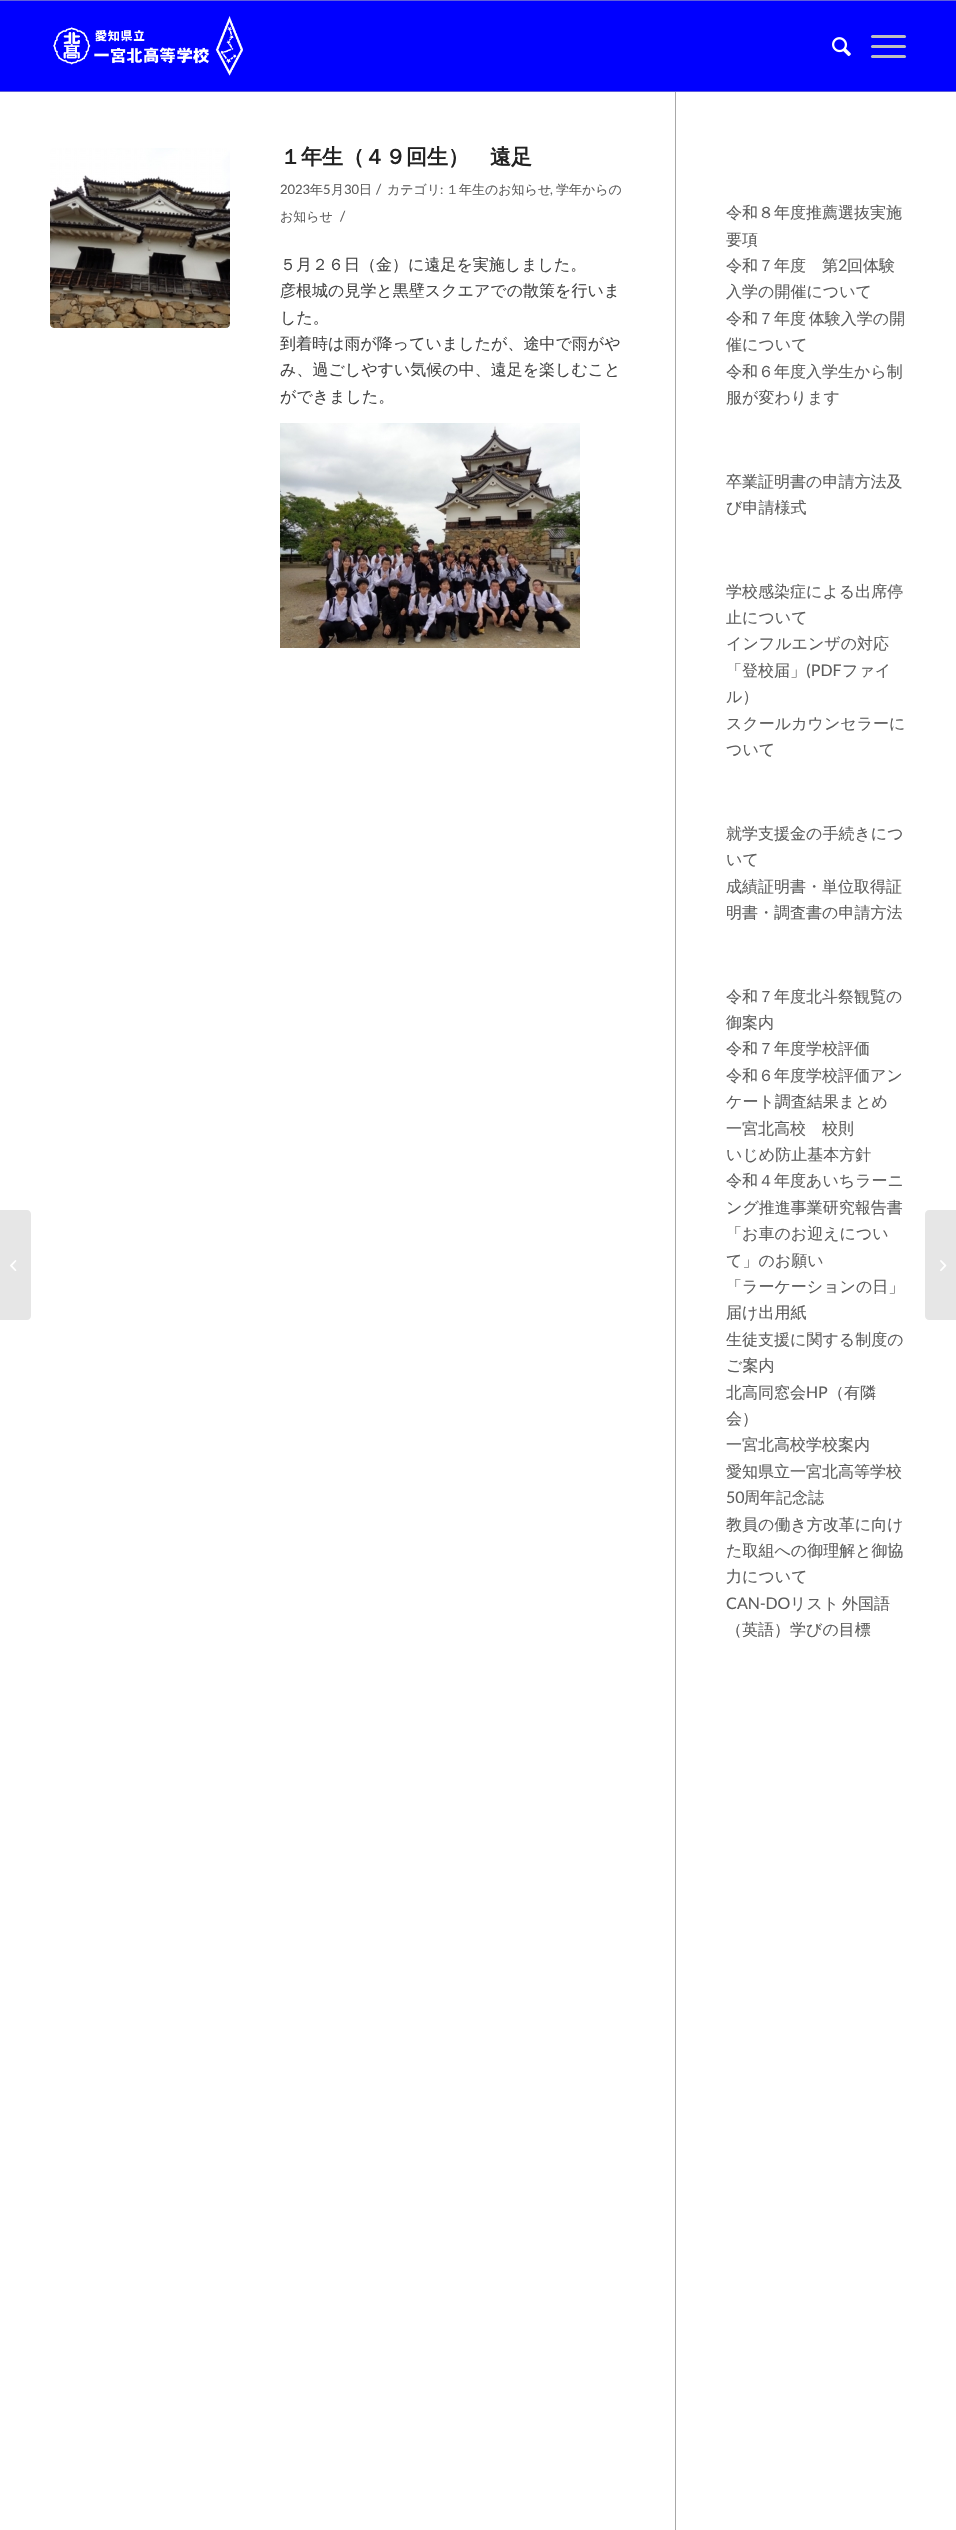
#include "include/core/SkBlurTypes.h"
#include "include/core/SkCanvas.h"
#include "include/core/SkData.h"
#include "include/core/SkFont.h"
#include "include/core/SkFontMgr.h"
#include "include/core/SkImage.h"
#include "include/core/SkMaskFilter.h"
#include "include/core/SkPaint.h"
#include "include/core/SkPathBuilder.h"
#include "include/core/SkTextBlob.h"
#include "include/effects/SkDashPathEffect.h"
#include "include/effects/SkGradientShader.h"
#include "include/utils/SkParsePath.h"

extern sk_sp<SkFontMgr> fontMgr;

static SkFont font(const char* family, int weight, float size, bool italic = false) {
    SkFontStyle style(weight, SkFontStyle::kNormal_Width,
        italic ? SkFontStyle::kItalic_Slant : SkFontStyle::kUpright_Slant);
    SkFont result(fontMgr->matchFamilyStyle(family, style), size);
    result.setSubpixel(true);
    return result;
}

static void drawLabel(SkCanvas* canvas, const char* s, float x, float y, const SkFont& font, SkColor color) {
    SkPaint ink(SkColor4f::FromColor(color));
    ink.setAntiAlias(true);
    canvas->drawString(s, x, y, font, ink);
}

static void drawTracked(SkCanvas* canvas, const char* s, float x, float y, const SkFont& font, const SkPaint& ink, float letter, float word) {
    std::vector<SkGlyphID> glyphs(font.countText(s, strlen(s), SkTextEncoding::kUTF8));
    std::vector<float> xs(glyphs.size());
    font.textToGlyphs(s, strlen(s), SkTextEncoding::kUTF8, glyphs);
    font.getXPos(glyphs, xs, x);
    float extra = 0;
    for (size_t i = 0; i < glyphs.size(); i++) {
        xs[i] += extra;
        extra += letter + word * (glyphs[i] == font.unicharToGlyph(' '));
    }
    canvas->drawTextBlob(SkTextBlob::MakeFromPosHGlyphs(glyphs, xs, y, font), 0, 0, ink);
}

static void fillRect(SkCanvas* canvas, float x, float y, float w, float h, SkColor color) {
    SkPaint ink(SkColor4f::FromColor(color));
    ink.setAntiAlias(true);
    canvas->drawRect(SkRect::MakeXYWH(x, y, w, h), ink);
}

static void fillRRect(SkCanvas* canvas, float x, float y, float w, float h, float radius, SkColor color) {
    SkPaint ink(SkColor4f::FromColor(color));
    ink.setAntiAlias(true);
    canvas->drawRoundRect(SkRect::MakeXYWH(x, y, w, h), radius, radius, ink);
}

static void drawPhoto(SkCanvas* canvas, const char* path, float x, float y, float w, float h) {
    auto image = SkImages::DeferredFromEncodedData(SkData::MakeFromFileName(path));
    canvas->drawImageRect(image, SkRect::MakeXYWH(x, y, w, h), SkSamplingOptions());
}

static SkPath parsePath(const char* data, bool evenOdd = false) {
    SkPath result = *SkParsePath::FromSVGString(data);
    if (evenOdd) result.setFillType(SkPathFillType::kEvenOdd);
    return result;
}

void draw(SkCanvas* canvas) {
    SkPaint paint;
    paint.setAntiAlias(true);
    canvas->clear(0xFFFFFFFF);
    fillRect(canvas, 0, 0, 956, 1, 0xFF5F5FD9);
    fillRect(canvas, 0, 91, 956, 1, 0xFF5F5FD9);
    fillRect(canvas, 0, 1, 956, 90, 0xFF0000FF);
    drawPhoto(canvas, "assets/img1.png", 53, 16, 190, 60);
    drawPhoto(canvas, "assets/img2.png", 832, 37, 19, 20);
    fillRRect(canvas, 871, 45, 35, 3, 1.5f, 0xFFBFBFBF);
    fillRRect(canvas, 871, 35, 35, 3, 1.5f, 0xFFBFBFBF);
    fillRRect(canvas, 871, 55, 35, 3, 1.5f, 0xFFBFBFBF);
    paint.setColor(0xFFE6E6E6);
    canvas->drawPath(parsePath("M0 1210H27C29 1210 31 1212 31 1214V1316C31 1318 29 1320 27 1320H0Z"), paint);
    drawPhoto(canvas, "assets/img3.png", 10, 1260, 7, 11);
    fillRect(canvas, 675, 92, 1, 2438, 0xFFA8A8A8);
    drawPhoto(canvas, "assets/img4.png", 50, 148, 180, 180);
    SkFont font1 = font("WenQuanYi Zen Hei", 700, 21);
    drawLabel(canvas, "１年生（４９回生）　遠足", 280, 164, font1, 0xFF222222);
    SkFont font2 = font("Lato", 400, 13);
    drawLabel(canvas, "2023", 280, 194, font2, 0xFF5E5E5E);
    SkFont font3 = font("WenQuanYi Zen Hei", 500, 13);
    drawLabel(canvas, "年", 310, 194, font3, 0xFF5E5E5E);
    drawLabel(canvas, "5", 323, 194, font2, 0xFF5E5E5E);
    drawLabel(canvas, "月", 331, 194, font3, 0xFF5E5E5E);
    drawLabel(canvas, "30", 344, 194, font2, 0xFF5E5E5E);
    drawLabel(canvas, "日", 359, 194, font3, 0xFF5E5E5E);
    SkFont font4 = font("Lato", 400, 14);
    drawLabel(canvas, "/", 376, 194, font4, 0xFF5E5E5E);
    drawLabel(canvas, "カテゴリ", 387, 194, font3, 0xFF5E5E5E);
    drawLabel(canvas, ":", 440, 194, font2, 0xFF5E5E5E);
    drawLabel(canvas, "１年生のお知らせ", 446, 194, font3, 0xFF5E5E5E);
    drawLabel(canvas, ",", 550, 194, font2, 0xFF5E5E5E);
    drawLabel(canvas, "学年からの", 556, 194, font3, 0xFF5E5E5E);
    drawLabel(canvas, "お知らせ", 280, 221, font3, 0xFF5E5E5E);
    drawLabel(canvas, "/", 340, 221, font4, 0xFF5E5E5E);
    SkFont font5 = font("WenQuanYi Zen Hei", 500, 16);
    drawLabel(canvas, "５月２６日（金）に遠足を実施しました。", 280, 270, font5, 0xFF454545);
    drawLabel(canvas, "彦根城の見学と黒壁スクエアでの散策を行いま", 280, 296, font5, 0xFF454545);
    drawLabel(canvas, "した。", 280, 323, font5, 0xFF454545);
    drawLabel(canvas, "到着時は雨が降っていましたが、途中で雨がや", 280, 349, font5, 0xFF454545);
    drawLabel(canvas, "み、過ごしやすい気候の中、遠足を楽しむこと", 280, 375, font5, 0xFF454545);
    drawLabel(canvas, "ができました。", 280, 402, font5, 0xFF454545);
    drawPhoto(canvas, "assets/img5.png", 280, 423, 300, 225);
    drawLabel(canvas, "令和８年度推薦選抜実施", 726, 218, font5, 0xFF5E5E5E);
    drawLabel(canvas, "要項", 726, 245, font5, 0xFF5E5E5E);
    drawLabel(canvas, "令和７年度　第", 726, 271, font5, 0xFF5E5E5E);
    SkFont font6 = font("Lato", 400, 16);
    drawLabel(canvas, "2", 838, 271, font6, 0xFF5E5E5E);
    drawLabel(canvas, "回体験", 847, 271, font5, 0xFF5E5E5E);
    drawLabel(canvas, "入学の開催について", 726, 297, font5, 0xFF5E5E5E);
    paint.setColor(0xFF5E5E5E);
    drawTracked(canvas, "令和７年度 体験入学の開", 726, 324, font5, paint, 0, -2);
    drawLabel(canvas, "催について", 726, 350, font5, 0xFF5E5E5E);
    drawLabel(canvas, "令和６年度入学生から制", 726, 377, font5, 0xFF5E5E5E);
    drawLabel(canvas, "服が変わります", 726, 403, font5, 0xFF5E5E5E);
    drawLabel(canvas, "卒業証明書の申請方法及", 726, 487, font5, 0xFF5E5E5E);
    drawLabel(canvas, "び申請様式", 726, 513, font5, 0xFF5E5E5E);
    drawLabel(canvas, "学校感染症による出席停", 726, 597, font5, 0xFF5E5E5E);
    drawLabel(canvas, "止について", 726, 623, font5, 0xFF5E5E5E);
    drawLabel(canvas, "インフルエンザの対応", 726, 649, font5, 0xFF5E5E5E);
    drawLabel(canvas, "「登校届」", 726, 676, font5, 0xFF5E5E5E);
    drawLabel(canvas, "(PDF", 806, 676, font6, 0xFF5E5E5E);
    drawLabel(canvas, "ファイ", 842, 676, font5, 0xFF5E5E5E);
    drawLabel(canvas, "ル）", 726, 702, font5, 0xFF5E5E5E);
    drawLabel(canvas, "スクールカウンセラーに", 726, 729, font5, 0xFF5E5E5E);
    drawLabel(canvas, "ついて", 726, 755, font5, 0xFF5E5E5E);
    drawLabel(canvas, "就学支援金の手続きにつ", 726, 839, font5, 0xFF5E5E5E);
    drawLabel(canvas, "いて", 726, 865, font5, 0xFF5E5E5E);
    drawLabel(canvas, "成績証明書・単位取得証", 726, 892, font5, 0xFF5E5E5E);
    drawLabel(canvas, "明書・調査書の申請方法", 726, 918, font5, 0xFF5E5E5E);
    drawLabel(canvas, "令和７年度北斗祭観覧の", 726, 1002, font5, 0xFF5E5E5E);
    drawLabel(canvas, "御案内", 726, 1028, font5, 0xFF5E5E5E);
    drawLabel(canvas, "令和７年度学校評価", 726, 1054, font5, 0xFF5E5E5E);
    drawLabel(canvas, "令和６年度学校評価アン", 726, 1081, font5, 0xFF5E5E5E);
    drawLabel(canvas, "ケート調査結果まとめ", 726, 1107, font5, 0xFF5E5E5E);
    drawLabel(canvas, "一宮北高校　校則", 726, 1134, font5, 0xFF5E5E5E);
    drawLabel(canvas, "いじめ防止基本方針", 726, 1160, font5, 0xFF5E5E5E);
    drawLabel(canvas, "令和４年度あいちラーニ", 726, 1186, font5, 0xFF5E5E5E);
    drawLabel(canvas, "ング推進事業研究報告書", 726, 1213, font5, 0xFF5E5E5E);
    drawLabel(canvas, "「お車のお迎えについ", 726, 1239, font5, 0xFF5E5E5E);
    drawLabel(canvas, "て」のお願い", 726, 1266, font5, 0xFF5E5E5E);
    drawLabel(canvas, "「ラーケーションの日」", 726, 1292, font5, 0xFF5E5E5E);
    drawLabel(canvas, "届け出用紙", 726, 1318, font5, 0xFF5E5E5E);
    drawLabel(canvas, "生徒支援に関する制度の", 726, 1345, font5, 0xFF5E5E5E);
    drawLabel(canvas, "ご案内", 726, 1371, font5, 0xFF5E5E5E);
    drawLabel(canvas, "北高同窓会", 726, 1398, font5, 0xFF5E5E5E);
    drawLabel(canvas, "HP", 806, 1398, font6, 0xFF5E5E5E);
    drawLabel(canvas, "（有隣", 828, 1398, font5, 0xFF5E5E5E);
    drawLabel(canvas, "会）", 726, 1424, font5, 0xFF5E5E5E);
    drawLabel(canvas, "一宮北高校学校案内", 726, 1450, font5, 0xFF5E5E5E);
    drawLabel(canvas, "愛知県立一宮北高等学校", 726, 1477, font5, 0xFF5E5E5E);
    drawLabel(canvas, "50", 726, 1503, font6, 0xFF5E5E5E);
    drawLabel(canvas, "周年記念誌", 744, 1503, font5, 0xFF5E5E5E);
    drawLabel(canvas, "教員の働き方改革に向け", 726, 1530, font5, 0xFF5E5E5E);
    drawLabel(canvas, "た取組への御理解と御協", 726, 1556, font5, 0xFF5E5E5E);
    drawLabel(canvas, "力について", 726, 1582, font5, 0xFF5E5E5E);
    drawLabel(canvas, "CAN-DO", 726, 1609, font6, 0xFF5E5E5E);
    drawTracked(canvas, "リスト 外国語", 790, 1609, font5, paint, 0, -2);
    drawLabel(canvas, "（英語）学びの目標", 726, 1635, font5, 0xFF5E5E5E);
    paint.setColor(0xFFE6E6E6);
    canvas->drawPath(parsePath("M929 1210H956V1320H929C927 1320 925 1318 925 1316V1214C925 1212 927 1210 929 1210Z"), paint);
    drawPhoto(canvas, "assets/img6.png", 940, 1260, 7, 11);
}
